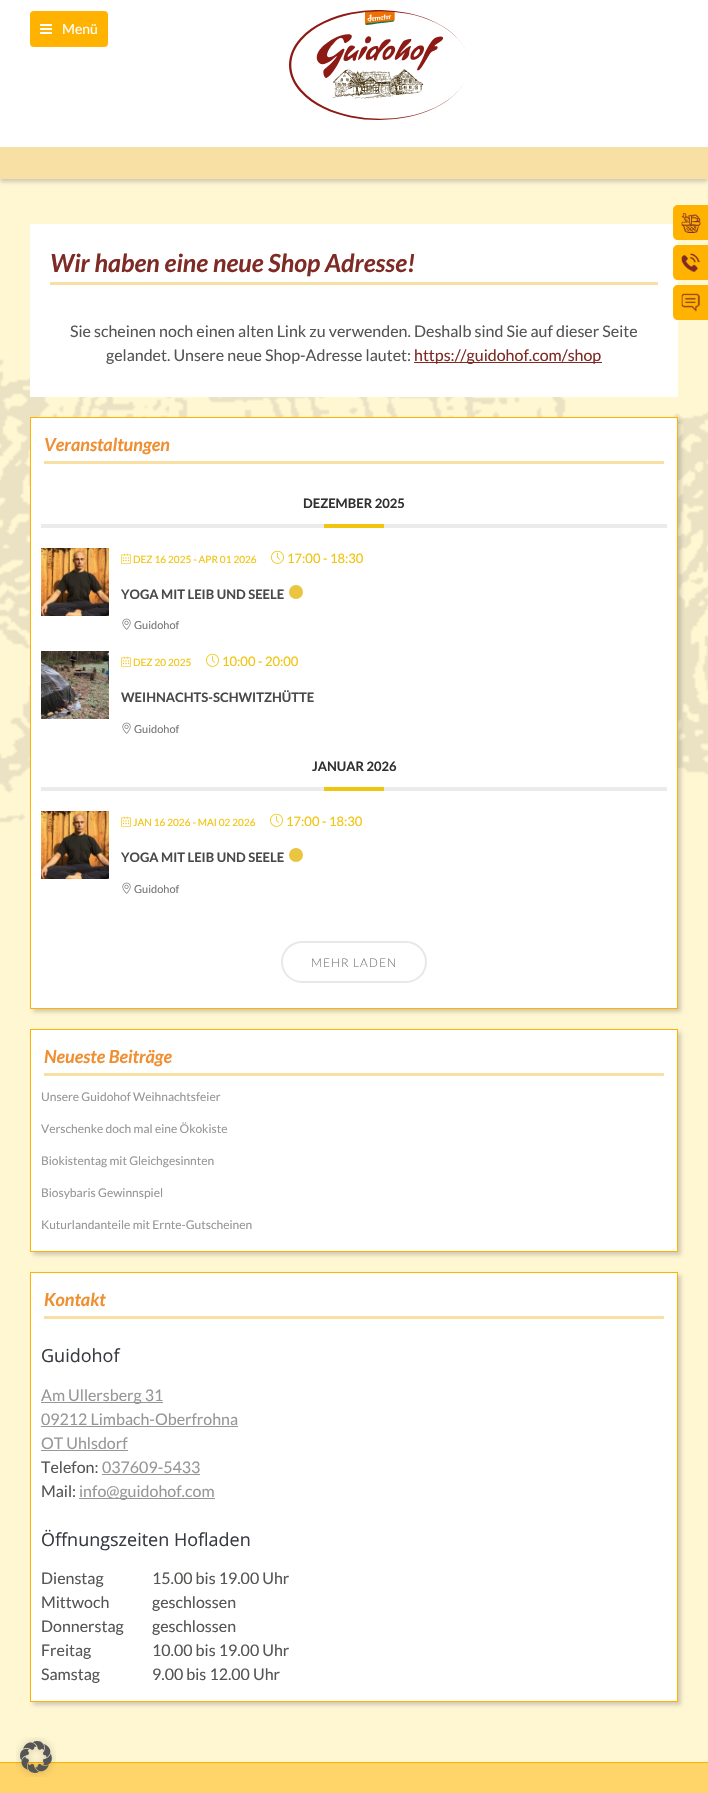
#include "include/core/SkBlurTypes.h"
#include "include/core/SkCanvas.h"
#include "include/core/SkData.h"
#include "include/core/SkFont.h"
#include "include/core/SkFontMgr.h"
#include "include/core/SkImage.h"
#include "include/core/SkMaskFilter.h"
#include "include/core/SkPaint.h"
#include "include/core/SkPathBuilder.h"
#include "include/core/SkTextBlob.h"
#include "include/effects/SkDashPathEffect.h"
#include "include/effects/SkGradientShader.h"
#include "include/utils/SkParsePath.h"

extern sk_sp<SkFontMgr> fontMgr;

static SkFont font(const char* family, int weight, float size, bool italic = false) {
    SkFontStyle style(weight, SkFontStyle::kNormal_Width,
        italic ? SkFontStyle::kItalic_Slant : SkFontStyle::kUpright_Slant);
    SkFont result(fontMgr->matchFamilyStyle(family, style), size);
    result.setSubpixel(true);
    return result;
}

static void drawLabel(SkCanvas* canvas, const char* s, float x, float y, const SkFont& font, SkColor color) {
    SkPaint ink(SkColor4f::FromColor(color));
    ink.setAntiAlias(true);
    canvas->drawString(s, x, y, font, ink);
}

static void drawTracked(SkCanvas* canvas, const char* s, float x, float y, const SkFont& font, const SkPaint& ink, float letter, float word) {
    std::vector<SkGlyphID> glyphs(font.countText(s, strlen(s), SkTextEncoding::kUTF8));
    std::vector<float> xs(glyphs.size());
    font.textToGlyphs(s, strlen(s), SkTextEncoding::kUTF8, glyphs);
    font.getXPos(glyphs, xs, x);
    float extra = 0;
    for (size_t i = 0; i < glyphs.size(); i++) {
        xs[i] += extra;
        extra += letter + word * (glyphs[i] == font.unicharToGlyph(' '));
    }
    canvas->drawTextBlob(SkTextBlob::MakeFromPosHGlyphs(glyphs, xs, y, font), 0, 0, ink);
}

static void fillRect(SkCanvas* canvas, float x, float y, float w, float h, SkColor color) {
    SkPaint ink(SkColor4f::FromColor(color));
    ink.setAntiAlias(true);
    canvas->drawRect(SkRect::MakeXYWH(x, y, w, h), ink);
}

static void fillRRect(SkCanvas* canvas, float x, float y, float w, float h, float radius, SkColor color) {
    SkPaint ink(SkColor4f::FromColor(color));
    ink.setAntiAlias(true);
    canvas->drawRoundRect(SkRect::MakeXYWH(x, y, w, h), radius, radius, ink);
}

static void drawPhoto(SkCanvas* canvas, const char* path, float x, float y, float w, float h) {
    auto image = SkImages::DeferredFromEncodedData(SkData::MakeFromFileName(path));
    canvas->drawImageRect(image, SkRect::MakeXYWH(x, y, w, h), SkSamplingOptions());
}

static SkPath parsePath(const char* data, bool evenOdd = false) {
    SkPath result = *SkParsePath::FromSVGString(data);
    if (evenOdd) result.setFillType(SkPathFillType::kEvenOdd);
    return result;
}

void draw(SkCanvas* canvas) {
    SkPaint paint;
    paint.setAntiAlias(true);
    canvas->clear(0xFFFFF6D2);
    drawPhoto(canvas, "assets/img1.png", 0, 359, 708, 464);
    paint.setColor(0x4D666666);
    paint.setMaskFilter(SkMaskFilter::MakeBlur(kNormal_SkBlurStyle, 2));
    canvas->drawRect(SkRect::MakeXYWH(0, 150, 708, 32), paint);
    paint.setMaskFilter(nullptr);
    fillRect(canvas, 0, 0, 708, 147, 0xFFFFFFFF);
    fillRRect(canvas, 30, 11, 78, 36, 4, 0xFFFFB200);
    drawPhoto(canvas, "assets/img2.png", 40, 24, 12, 10);
    SkFont font1 = font("Lato", 400, 14);
    drawLabel(canvas, "Menü", 62, 34, font1, 0xFFFFFFFF);
    drawPhoto(canvas, "assets/img3.png", 289, 10, 177, 110);
    fillRect(canvas, 0, 147, 708, 32, 0xFFF8DFA4);
    fillRect(canvas, 30, 224, 648, 173, 0xFFFFFFFF);
    fillRect(canvas, 50, 282, 608, 3, 0xFFF8DFA4);
    SkFont font2 = font("Lato", 700, 25, true);
    drawLabel(canvas, "Wir haben eine neue Shop Adresse!", 50, 272, font2, 0xFF7E2B25);
    SkFont font3 = font("Lato", 400, 16);
    drawLabel(canvas, "Sie scheinen noch einen alten Link zu verwenden. Deshalb sind Sie auf dieser Seite", 70, 337, font3, 0xFF565553);
    drawLabel(canvas, "gelandet. Unsere neue Shop-Adresse lautet:", 106, 361, font3, 0xFF565553);
    fillRect(canvas, 414, 362, 188, 1, 0xFF7E2B25);
    drawLabel(canvas, "https://guidohof.com/shop", 414, 361, font3, 0xFF7E2B25);
    paint.setMaskFilter(SkMaskFilter::MakeBlur(kNormal_SkBlurStyle, 2));
    canvas->drawRect(SkRect::MakeXYWH(33, 420, 648, 592), paint);
    paint.setMaskFilter(nullptr);
    paint.setColor(0xFFFFFFFF);
    canvas->drawRect(SkRect::MakeXYWH(30.5f, 417.5f, 647, 591), paint);
    paint.setStroke(true);
    paint.setStrokeWidth(1);
    paint.setColor(0xFFFFB200);
    canvas->drawRect(SkRect::MakeXYWH(30.5f, 417.5f, 647, 591), paint);
    fillRect(canvas, 44, 461, 620, 3, 0xFFF8DFA4);
    SkFont font4 = font("Lato", 700, 18, true);
    drawLabel(canvas, "Veranstaltungen", 44, 451, font4, 0xFFF08F31);
    fillRect(canvas, 41, 524, 626, 4, 0xFFEBEBEB);
    SkFont font5 = font("Lato", 700, 13);
    drawLabel(canvas, "DEZEMBER 2025", 303, 508, font5, 0xFF313131);
    fillRect(canvas, 324, 524, 60, 4, 0xFFF1C40F);
    drawPhoto(canvas, "assets/img4.png", 41, 548, 68, 68);
    drawPhoto(canvas, "assets/img5.png", 121, 553, 10, 11);
    SkFont font6 = font("Lato", 400, 10);
    drawLabel(canvas, "DEZ 16 2025 - APR 01 2026", 133, 563, font6, 0xFFF1C40F);
    drawPhoto(canvas, "assets/img6.png", 271, 550, 13, 14);
    SkFont font7 = font("Lato", 400, 13);
    drawLabel(canvas, "17:00 - 18:30", 287, 563, font7, 0xFFF1C40F);
    drawLabel(canvas, "YOGA MIT LEIB UND SEELE", 121, 599, font5, 0xFF494949);
    paint.setStroke(false);
    paint.setColor(0xFFEAC53F);
    canvas->drawCircle(296, 592, 7, paint);
    drawPhoto(canvas, "assets/img7.png", 122, 618, 9, 12);
    SkFont font8 = font("Lato", 400, 11);
    drawLabel(canvas, "Guidohof", 134, 629, font8, 0xFF777777);
    drawPhoto(canvas, "assets/img8.png", 41, 651, 68, 68);
    drawPhoto(canvas, "assets/img5.png", 121, 656, 10, 11);
    drawLabel(canvas, "DEZ 20 2025", 133, 666, font6, 0xFFF1C40F);
    drawPhoto(canvas, "assets/img6.png", 206, 653, 13, 14);
    drawLabel(canvas, "10:00 - 20:00", 222, 666, font7, 0xFFF1C40F);
    drawLabel(canvas, "WEIHNACHTS-SCHWITZHÜTTE", 121, 702, font5, 0xFF494949);
    drawPhoto(canvas, "assets/img7.png", 122, 722, 9, 12);
    drawLabel(canvas, "Guidohof", 134, 733, font8, 0xFF777777);
    fillRect(canvas, 41, 787, 626, 4, 0xFFEBEBEB);
    drawLabel(canvas, "JANUAR 2026", 312, 771, font5, 0xFF313131);
    fillRect(canvas, 324, 787, 60, 4, 0xFFF1C40F);
    drawPhoto(canvas, "assets/img9.png", 41, 811, 68, 68);
    drawPhoto(canvas, "assets/img5.png", 121, 816, 10, 11);
    drawLabel(canvas, "JAN 16 2026 - MAI 02 2026", 133, 826, font6, 0xFFF1C40F);
    drawPhoto(canvas, "assets/img6.png", 270, 813, 13, 14);
    drawLabel(canvas, "17:00 - 18:30", 286, 826, font7, 0xFFF1C40F);
    drawLabel(canvas, "YOGA MIT LEIB UND SEELE", 121, 862, font5, 0xFF494949);
    canvas->drawCircle(296, 855, 7, paint);
    drawPhoto(canvas, "assets/img7.png", 122, 882, 9, 12);
    drawLabel(canvas, "Guidohof", 134, 893, font8, 0xFF777777);
    paint.setStroke(true);
    paint.setStrokeWidth(2);
    paint.setColor(0xFFE8E8E8);
    canvas->drawRoundRect(SkRect::MakeXYWH(282, 942, 144, 40), 20, 20, paint);
    SkFont font9 = font("Lato", 300, 12);
    paint.setStroke(false);
    paint.setColor(0xFF777777);
    drawTracked(canvas, "MEHR LADEN", 311, 967, font9, paint, 1, 0);
    paint.setColor(0x4D666666);
    paint.setMaskFilter(SkMaskFilter::MakeBlur(kNormal_SkBlurStyle, 2));
    canvas->drawRect(SkRect::MakeXYWH(33, 1032, 648, 223), paint);
    paint.setMaskFilter(nullptr);
    paint.setColor(0xFFFFFFFF);
    canvas->drawRect(SkRect::MakeXYWH(30.5f, 1029.5f, 647, 222), paint);
    paint.setStroke(true);
    paint.setStrokeWidth(1);
    paint.setColor(0xFFFFB200);
    canvas->drawRect(SkRect::MakeXYWH(30.5f, 1029.5f, 647, 222), paint);
    fillRect(canvas, 44, 1073, 620, 3, 0xFFF8DFA4);
    drawLabel(canvas, "Neueste Beiträge", 44, 1063, font4, 0xFFF08F31);
    SkFont font10 = font("Lato", 400, 12);
    drawLabel(canvas, "Unsere Guidohof Weihnachtsfeier", 41, 1101, font10, 0xFF969798);
    drawLabel(canvas, "Verschenke doch mal eine Ökokiste", 41, 1133, font10, 0xFF969798);
    drawLabel(canvas, "Biokistentag mit Gleichgesinnten", 41, 1165, font10, 0xFF969798);
    drawLabel(canvas, "Biosybaris Gewinnspiel", 41, 1197, font10, 0xFF969798);
    drawLabel(canvas, "Kuturlandanteile mit Ernte-Gutscheinen", 41, 1229, font10, 0xFF969798);
    paint.setStroke(false);
    paint.setColor(0x4D666666);
    paint.setMaskFilter(SkMaskFilter::MakeBlur(kNormal_SkBlurStyle, 2));
    canvas->drawRect(SkRect::MakeXYWH(33, 1275, 648, 430), paint);
    paint.setMaskFilter(nullptr);
    paint.setColor(0xFFFFFFFF);
    canvas->drawRect(SkRect::MakeXYWH(30.5f, 1272.5f, 647, 429), paint);
    paint.setStroke(true);
    paint.setColor(0xFFFFB200);
    canvas->drawRect(SkRect::MakeXYWH(30.5f, 1272.5f, 647, 429), paint);
    fillRect(canvas, 44, 1316, 620, 3, 0xFFF8DFA4);
    drawLabel(canvas, "Kontakt", 44, 1306, font4, 0xFFF08F31);
    SkFont font11 = font("Open Sans", 400, 18);
    drawLabel(canvas, "Guidohof", 41, 1362, font11, 0xFF373A41);
    fillRect(canvas, 41, 1402, 122, 1, 0xFF969798);
    drawLabel(canvas, "Am Ullersberg 31", 41, 1401, font3, 0xFF969798);
    drawLabel(canvas, "09212 Limbach-Oberfrohna", 41, 1425, font3, 0xFF969798);
    fillRect(canvas, 41, 1426, 197, 1, 0xFF969798);
    drawLabel(canvas, "OT Uhlsdorf", 41, 1449, font3, 0xFF969798);
    fillRect(canvas, 41, 1450, 87, 1, 0xFF969798);
    drawLabel(canvas, "Telefon:", 41, 1473, font3, 0xFF565553);
    drawLabel(canvas, "037609-5433", 102, 1473, font3, 0xFF969798);
    fillRect(canvas, 102, 1474, 98, 1, 0xFF969798);
    drawLabel(canvas, "Mail:", 41, 1497, font3, 0xFF565553);
    fillRect(canvas, 79, 1498, 136, 1, 0xFF969798);
    drawLabel(canvas, "info@guidohof.com", 79, 1497, font3, 0xFF969798);
    drawLabel(canvas, "Öffnungszeiten Hofladen", 41, 1546, font11, 0xFF373A41);
    drawLabel(canvas, "Dienstag", 41, 1584, font3, 0xFF565553);
    drawLabel(canvas, "15.00 bis 19.00 Uhr", 152, 1584, font3, 0xFF565553);
    drawLabel(canvas, "Mittwoch", 41, 1608, font3, 0xFF565553);
    drawLabel(canvas, "geschlossen", 152, 1608, font3, 0xFF565553);
    drawLabel(canvas, "Donnerstag", 41, 1632, font3, 0xFF565553);
    drawLabel(canvas, "geschlossen", 152, 1632, font3, 0xFF565553);
    drawLabel(canvas, "Freitag", 41, 1656, font3, 0xFF565553);
    drawLabel(canvas, "10.00 bis 19.00 Uhr", 152, 1656, font3, 0xFF565553);
    drawLabel(canvas, "Samstag", 41, 1680, font3, 0xFF565553);
    drawLabel(canvas, "9.00 bis 12.00 Uhr", 152, 1680, font3, 0xFF565553);
    paint.setStroke(false);
    canvas->drawPath(parsePath("M678 205H708V240H678C675 240 673 238 673 235V210C673 207 675 205 678 205Z"), paint);
    drawPhoto(canvas, "assets/img10.png", 681, 213, 20, 20);
    canvas->drawPath(parsePath("M678 245H708V280H678C675 280 673 278 673 275V250C673 247 675 245 678 245Z"), paint);
    drawPhoto(canvas, "assets/img11.png", 681, 253, 19, 19);
    canvas->drawPath(parsePath("M678 285H708V320H678C675 320 673 318 673 315V290C673 287 675 285 678 285Z"), paint);
    drawPhoto(canvas, "assets/img12.png", 681, 293, 19, 19);
    fillRect(canvas, 0, 1763, 708, 30, 0xFFFFD469);
    fillRect(canvas, 0, 1762, 708, 1, 0xFFFFB200);
    drawPhoto(canvas, "assets/img13.png", 16, 1737, 40, 40);
}
